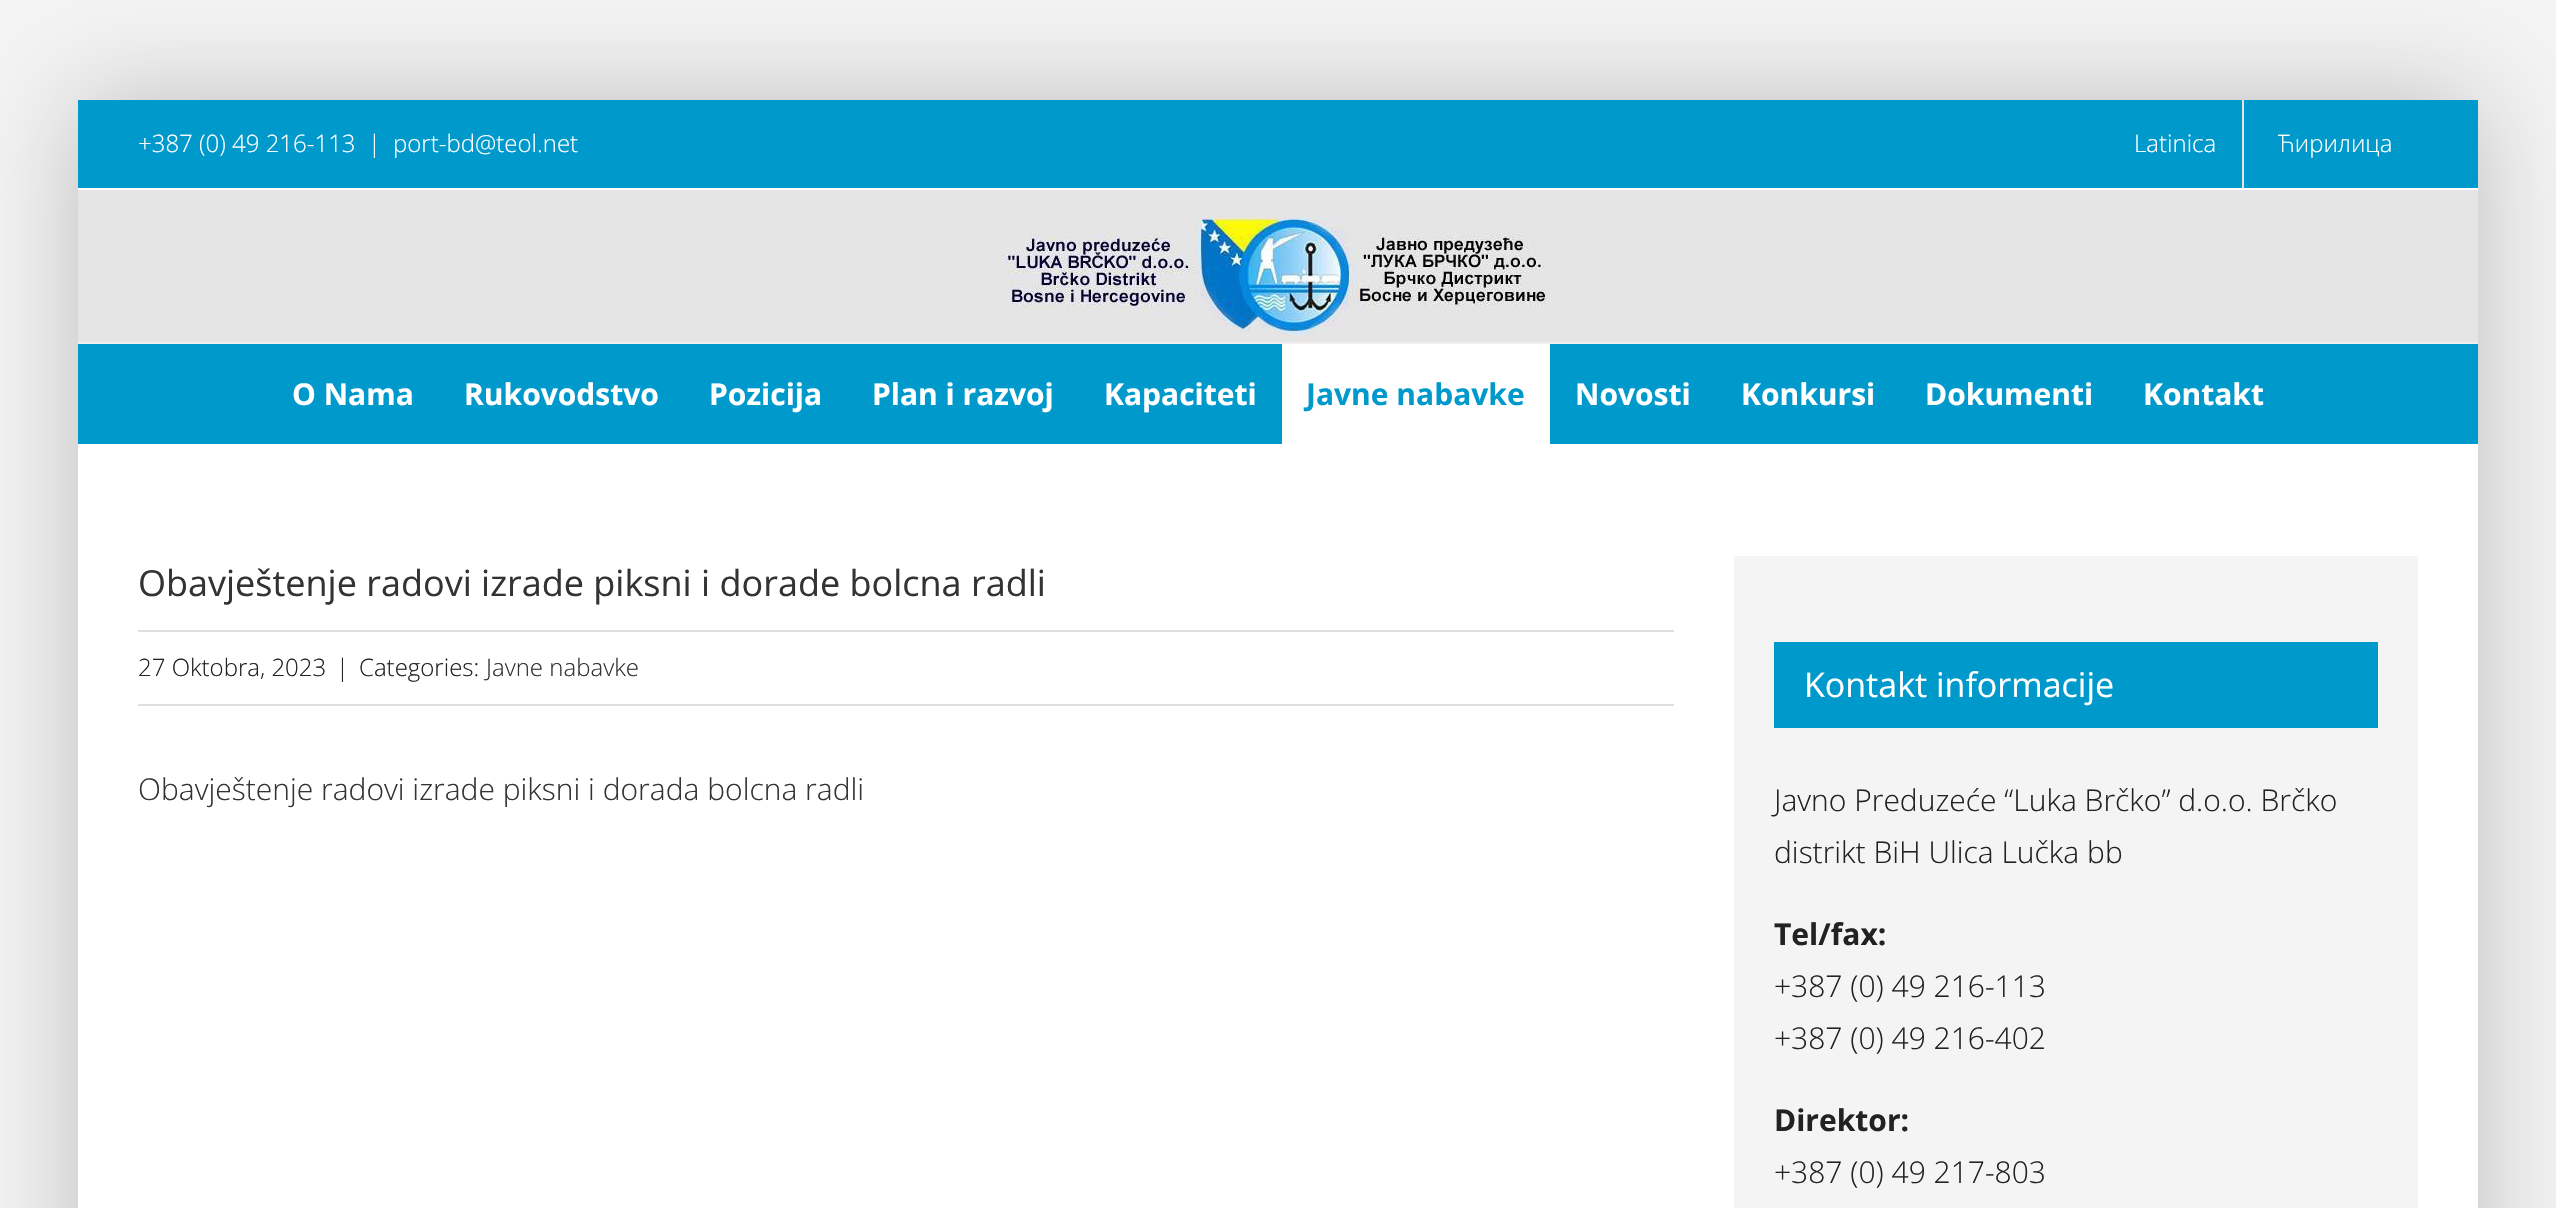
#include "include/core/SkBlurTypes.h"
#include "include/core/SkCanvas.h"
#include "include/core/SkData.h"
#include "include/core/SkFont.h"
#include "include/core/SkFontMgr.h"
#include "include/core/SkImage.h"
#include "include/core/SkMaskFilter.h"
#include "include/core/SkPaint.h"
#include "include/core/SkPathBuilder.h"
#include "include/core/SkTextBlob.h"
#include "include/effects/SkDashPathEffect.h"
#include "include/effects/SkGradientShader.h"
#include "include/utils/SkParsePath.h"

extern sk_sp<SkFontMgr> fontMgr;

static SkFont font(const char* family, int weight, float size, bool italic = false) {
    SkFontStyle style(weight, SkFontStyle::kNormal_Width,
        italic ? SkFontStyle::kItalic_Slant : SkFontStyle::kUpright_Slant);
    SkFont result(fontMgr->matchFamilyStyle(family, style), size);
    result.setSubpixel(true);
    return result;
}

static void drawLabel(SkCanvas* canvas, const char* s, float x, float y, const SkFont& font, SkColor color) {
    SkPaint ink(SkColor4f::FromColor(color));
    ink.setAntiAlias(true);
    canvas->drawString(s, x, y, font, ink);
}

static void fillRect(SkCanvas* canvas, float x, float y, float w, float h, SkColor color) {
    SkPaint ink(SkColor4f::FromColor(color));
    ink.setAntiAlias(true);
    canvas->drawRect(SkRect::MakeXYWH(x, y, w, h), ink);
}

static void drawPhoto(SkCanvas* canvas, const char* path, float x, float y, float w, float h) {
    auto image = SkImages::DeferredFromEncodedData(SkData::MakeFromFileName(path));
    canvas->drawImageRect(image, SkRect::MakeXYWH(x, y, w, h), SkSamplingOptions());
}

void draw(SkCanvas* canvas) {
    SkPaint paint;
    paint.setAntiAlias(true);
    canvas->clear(0xFFF4F4F4);
    paint.setColor(0x38000000);
    paint.setMaskFilter(SkMaskFilter::MakeBlur(kNormal_SkBlurStyle, 50));
    canvas->drawRect(SkRect::MakeXYWH(76, 98, 2404, 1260), paint);
    paint.setMaskFilter(nullptr);
    fillRect(canvas, 78, 100, 2400, 88, 0xFF0099CC);
    fillRect(canvas, 78, 188, 2400, 2, 0xFFFFFFFF);
    SkFont font1 = font("Open Sans", 300, 24);
    drawLabel(canvas, "+387 (0) 49 216-113", 138, 152, font1, 0xFFFFFFFF);
    drawLabel(canvas, "|", 368, 152, font1, 0xFFFFFFFF);
    drawLabel(canvas, "port-bd@teol.net", 393, 152, font1, 0xFFFFFFFF);
    drawLabel(canvas, "Latinica", 2134, 152, font1, 0xFFFFFFFF);
    fillRect(canvas, 2242, 100, 2, 88, 0xFFE5E5E5);
    drawLabel(canvas, "Ћирилица", 2278, 152, font1, 0xFFFFFFFF);
    fillRect(canvas, 78, 190, 2400, 152, 0xFFE5E5E5);
    fillRect(canvas, 78, 342, 2400, 2, 0xFFEFEFEF);
    drawPhoto(canvas, "assets/img1.png", 994, 217, 552, 125);
    fillRect(canvas, 78, 344, 2400, 100, 0xFF0099CC);
    SkFont font2 = font("Open Sans", 700, 30);
    drawLabel(canvas, "O Nama", 292, 405, font2, 0xFFFFFFFF);
    drawLabel(canvas, "Rukovodstvo", 464, 405, font2, 0xFFFFFFFF);
    drawLabel(canvas, "Pozicija", 709, 405, font2, 0xFFFFFFFF);
    drawLabel(canvas, "Plan i razvoj", 872, 405, font2, 0xFFFFFFFF);
    drawLabel(canvas, "Kapaciteti", 1104, 405, font2, 0xFFFFFFFF);
    fillRect(canvas, 1282, 344, 268, 100, 0xFFFFFFFF);
    drawLabel(canvas, "Javne nabavke", 1306, 405, font2, 0xFF0099CC);
    drawLabel(canvas, "Novosti", 1575, 405, font2, 0xFFFFFFFF);
    drawLabel(canvas, "Konkursi", 1741, 405, font2, 0xFFFFFFFF);
    drawLabel(canvas, "Dokumenti", 1925, 405, font2, 0xFFFFFFFF);
    drawLabel(canvas, "Kontakt", 2143, 405, font2, 0xFFFFFFFF);
    fillRect(canvas, 78, 444, 2400, 764, 0xFFFFFFFF);
    SkFont font3 = font("Open Sans", 400, 36);
    drawLabel(canvas, "Obavještenje radovi izrade piksni i dorade bolcna radli", 138, 596, font3, 0xFF333333);
    fillRect(canvas, 138, 630, 1536, 2, 0xFFE0DEDE);
    fillRect(canvas, 138, 704, 1536, 2, 0xFFE0DEDE);
    drawLabel(canvas, "27 Oktobra, 2023", 138, 676, font1, 0xFF222222);
    drawLabel(canvas, "|", 336, 676, font1, 0xFF222222);
    drawLabel(canvas, "Categories:", 359, 676, font1, 0xFF222222);
    drawLabel(canvas, "Javne nabavke", 486, 676, font1, 0xFF333333);
    SkFont font4 = font("Open Sans", 300, 30);
    drawLabel(canvas, "Obavještenje radovi izrade piksni i dorada bolcna radli", 138, 800, font4, 0xFF333333);
    fillRect(canvas, 1734, 556, 684, 652, 0xFFF4F4F4);
    fillRect(canvas, 1774, 642, 604, 86, 0xFF0099CC);
    SkFont font5 = font("Open Sans", 400, 34);
    drawLabel(canvas, "Kontakt informacije", 1804, 697, font5, 0xFFFFFFFF);
    drawLabel(canvas, "Javno Preduzeće “Luka Brčko” d.o.o. Brčko", 1774, 811, font4, 0xFF222222);
    drawLabel(canvas, "distrikt BiH Ulica Lučka bb", 1774, 863, font4, 0xFF222222);
    drawLabel(canvas, "Tel/fax:", 1774, 945, font2, 0xFF222222);
    drawLabel(canvas, "+387 (0) 49 216-113", 1774, 997, font4, 0xFF222222);
    drawLabel(canvas, "+387 (0) 49 216-402", 1774, 1049, font4, 0xFF222222);
    drawLabel(canvas, "Direktor:", 1774, 1131, font2, 0xFF222222);
    drawLabel(canvas, "+387 (0) 49 217-803", 1774, 1183, font4, 0xFF222222);
}
